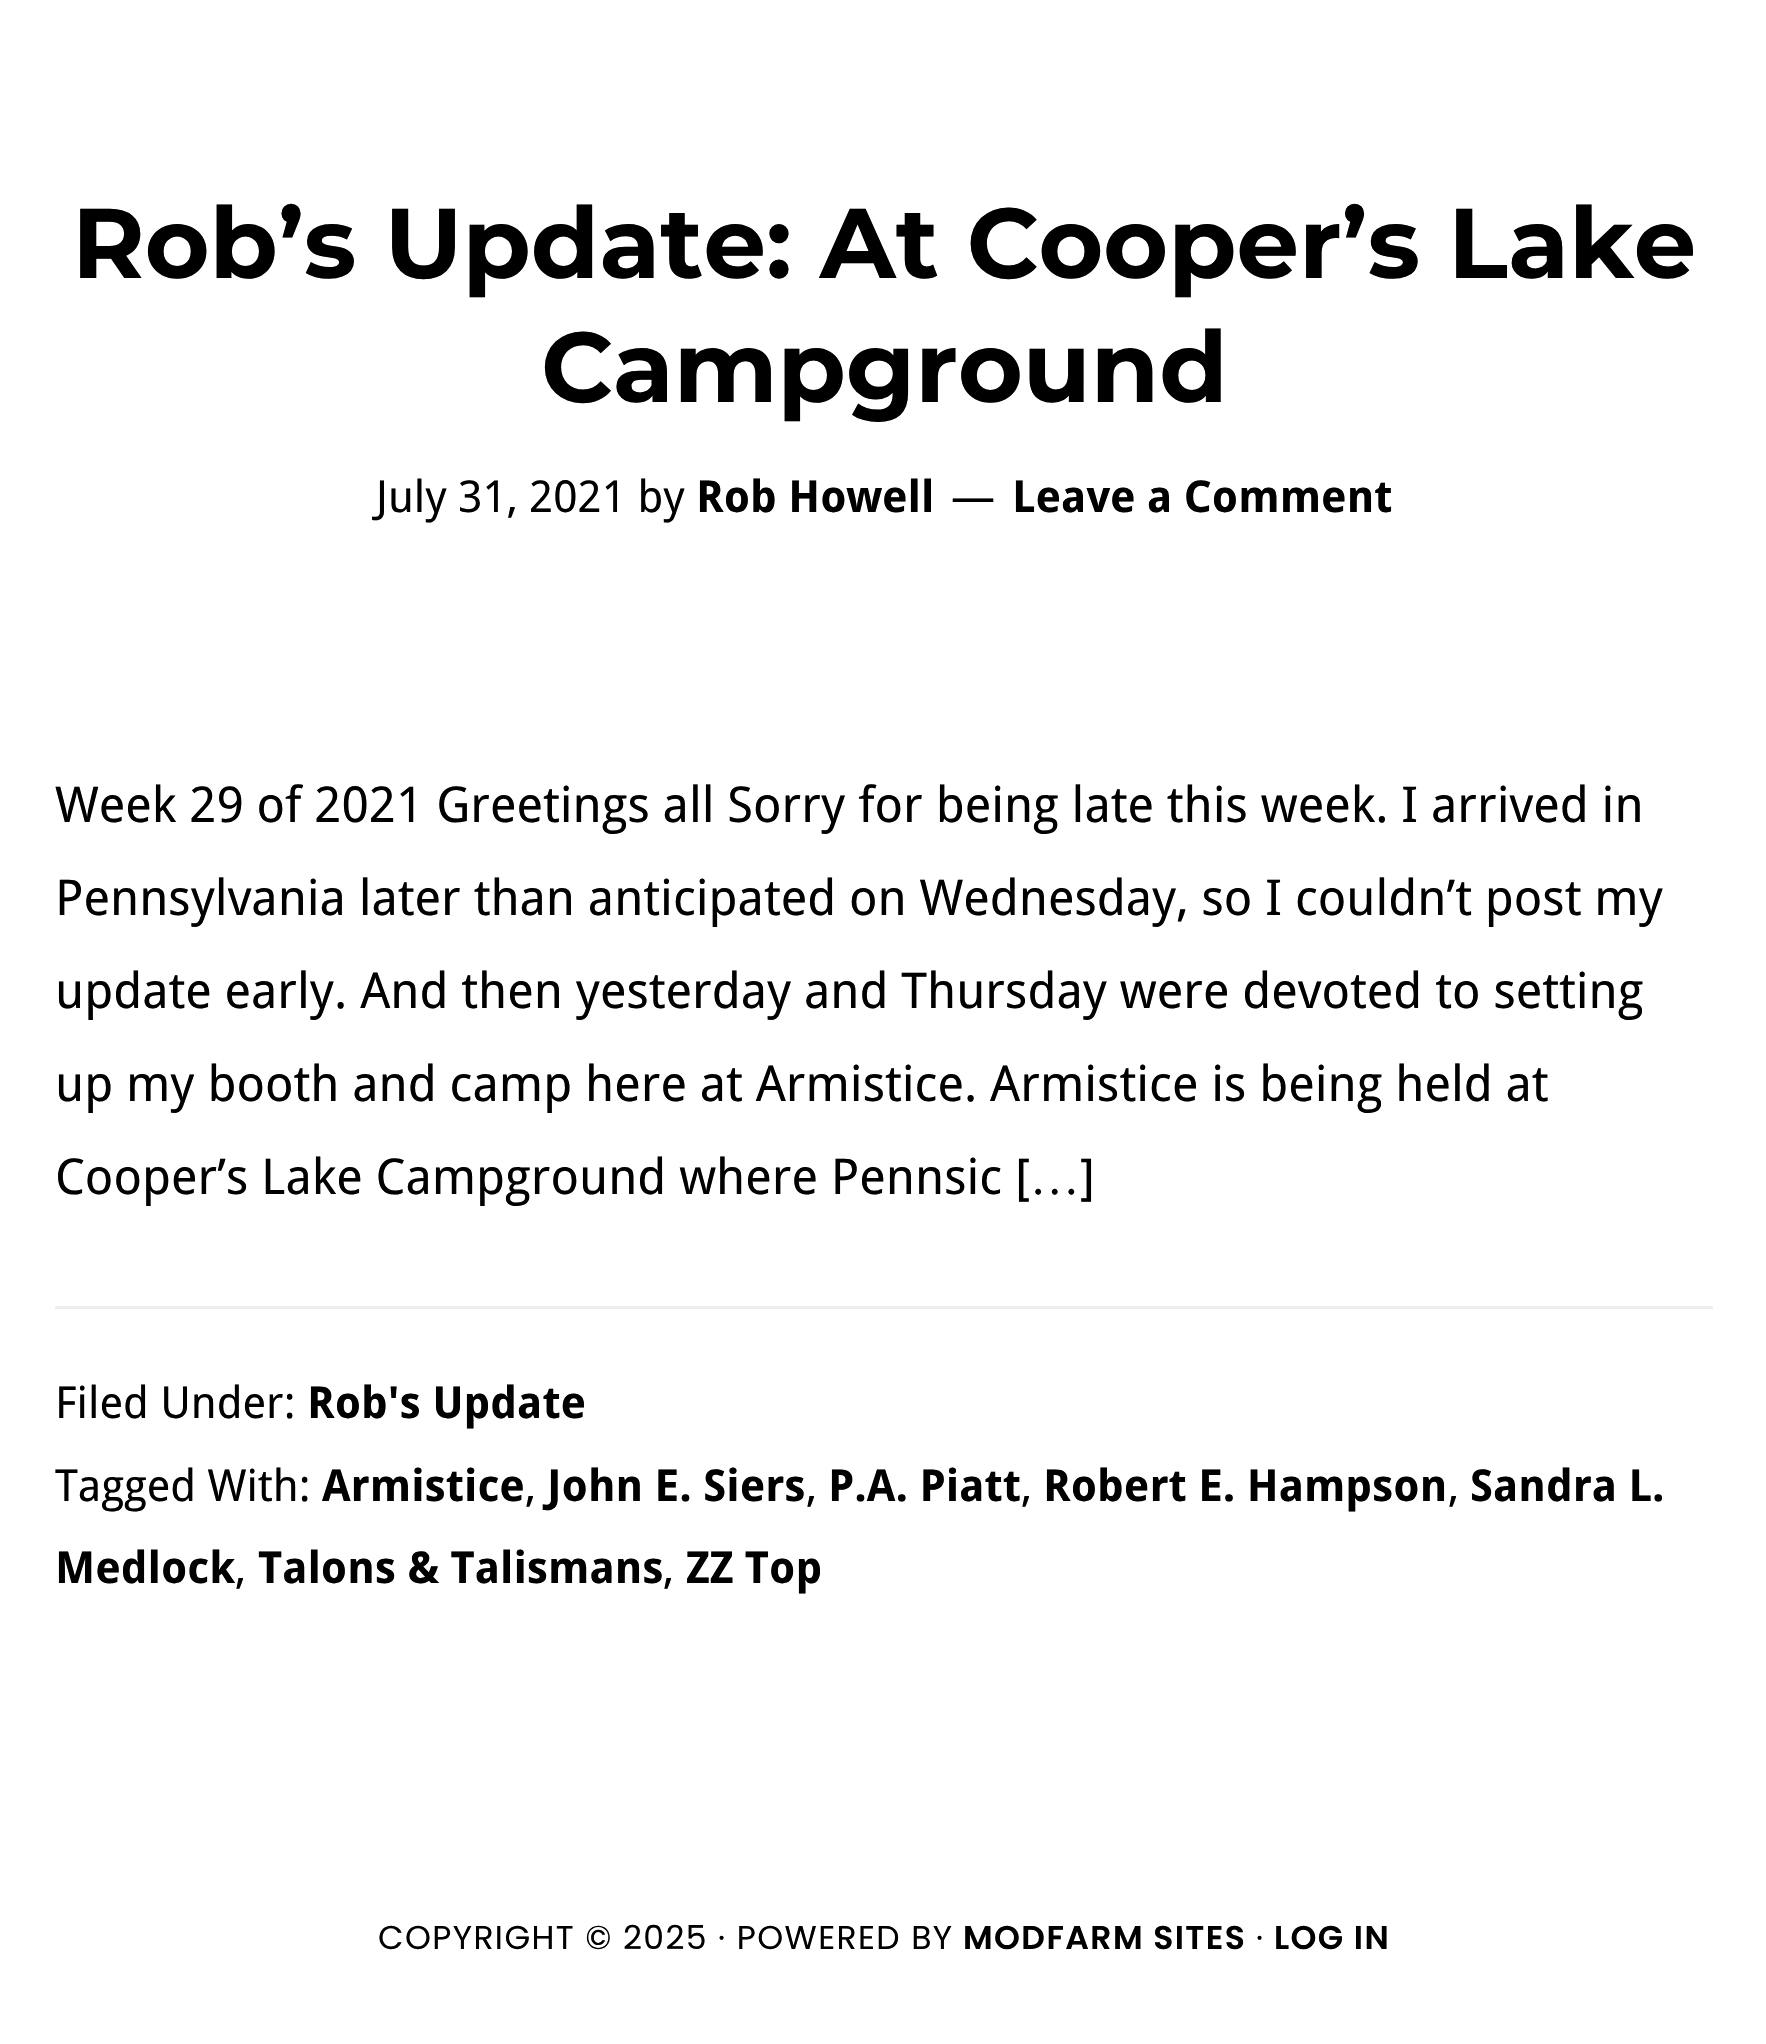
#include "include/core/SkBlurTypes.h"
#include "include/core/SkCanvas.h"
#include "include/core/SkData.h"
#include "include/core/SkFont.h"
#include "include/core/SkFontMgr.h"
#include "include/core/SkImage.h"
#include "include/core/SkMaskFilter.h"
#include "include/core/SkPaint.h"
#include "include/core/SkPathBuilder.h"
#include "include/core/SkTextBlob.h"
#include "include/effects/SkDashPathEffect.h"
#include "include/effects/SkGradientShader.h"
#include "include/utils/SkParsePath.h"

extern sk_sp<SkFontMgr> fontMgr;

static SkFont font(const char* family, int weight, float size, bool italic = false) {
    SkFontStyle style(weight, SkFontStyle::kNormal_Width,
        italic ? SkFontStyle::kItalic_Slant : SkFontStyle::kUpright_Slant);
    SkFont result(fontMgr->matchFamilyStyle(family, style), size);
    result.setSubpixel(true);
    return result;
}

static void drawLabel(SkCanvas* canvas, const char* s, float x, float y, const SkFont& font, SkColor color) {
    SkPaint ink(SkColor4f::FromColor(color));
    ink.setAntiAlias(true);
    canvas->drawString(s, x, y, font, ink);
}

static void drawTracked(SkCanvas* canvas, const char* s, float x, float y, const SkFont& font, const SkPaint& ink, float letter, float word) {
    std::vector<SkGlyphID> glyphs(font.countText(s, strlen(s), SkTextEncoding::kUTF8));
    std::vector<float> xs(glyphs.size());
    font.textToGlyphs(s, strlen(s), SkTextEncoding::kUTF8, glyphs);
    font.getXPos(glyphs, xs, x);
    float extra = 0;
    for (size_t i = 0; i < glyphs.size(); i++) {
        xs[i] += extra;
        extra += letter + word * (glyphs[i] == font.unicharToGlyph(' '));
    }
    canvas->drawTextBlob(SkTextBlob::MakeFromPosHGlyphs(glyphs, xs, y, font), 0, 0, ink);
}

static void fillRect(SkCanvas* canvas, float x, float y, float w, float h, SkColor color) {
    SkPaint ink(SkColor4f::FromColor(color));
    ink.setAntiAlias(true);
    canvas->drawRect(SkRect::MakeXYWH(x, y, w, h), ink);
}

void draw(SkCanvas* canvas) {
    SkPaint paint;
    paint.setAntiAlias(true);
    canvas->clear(0xFFFFFFFF);
    SkFont font1 = font("Montserrat", 700, 99);
    drawLabel(canvas, "Rob’s Update: At Cooper’s Lake", 72, 278, font1, 0xFF000000);
    drawLabel(canvas, "Campground", 541, 402, font1, 0xFF000000);
    SkFont font2 = font("Droid Sans", 400, 44);
    drawLabel(canvas, "July 31, 2021 by", 376, 512, font2, 0xFF000000);
    SkFont font3 = font("Droid Sans", 700, 44);
    drawLabel(canvas, "Rob Howell", 696, 512, font3, 0xFF000000);
    drawLabel(canvas, "—", 951, 512, font2, 0xFF000000);
    drawLabel(canvas, "Leave a Comment", 1012, 512, font3, 0xFF000000);
    SkFont font4 = font("Droid Sans", 400, 49.5f);
    drawLabel(canvas, "Week 29 of 2021 Greetings all Sorry for being late this week. I arrived in", 55, 822, font4, 0xFF000000);
    drawLabel(canvas, "Pennsylvania later than anticipated on Wednesday, so I couldn’t post my", 55, 915, font4, 0xFF000000);
    drawLabel(canvas, "update early. And then yesterday and Thursday were devoted to setting", 55, 1008, font4, 0xFF000000);
    drawLabel(canvas, "up my booth and camp here at Armistice. Armistice is being held at", 55, 1101, font4, 0xFF000000);
    drawLabel(canvas, "Cooper’s Lake Campground where Pennsic [", 55, 1194, font4, 0xFF000000);
    SkFont font5 = font("Liberation Serif", 400, 49.5f);
    drawLabel(canvas, "…", 1030, 1194, font5, 0xFF000000);
    drawLabel(canvas, "]", 1080, 1194, font4, 0xFF000000);
    fillRect(canvas, 55, 1306, 1658, 3, 0xFFEEEEEE);
    drawLabel(canvas, "Filed Under:", 55, 1418, font2, 0xFF000000);
    drawLabel(canvas, "Rob's Update", 307, 1418, font3, 0xFF000000);
    drawLabel(canvas, "Tagged With:", 55, 1501, font2, 0xFF000000);
    drawLabel(canvas, "Armistice", 322, 1501, font3, 0xFF000000);
    drawLabel(canvas, ",", 525, 1501, font2, 0xFF000000);
    drawLabel(canvas, "John E. Siers", 547, 1501, font3, 0xFF000000);
    drawLabel(canvas, ",", 806, 1501, font2, 0xFF000000);
    drawLabel(canvas, "P.A. Piatt", 828, 1501, font3, 0xFF000000);
    drawLabel(canvas, ",", 1021, 1501, font2, 0xFF000000);
    drawLabel(canvas, "Robert E. Hampson", 1043, 1501, font3, 0xFF000000);
    drawLabel(canvas, ",", 1448, 1501, font2, 0xFF000000);
    drawLabel(canvas, "Sandra L.", 1470, 1501, font3, 0xFF000000);
    drawLabel(canvas, "Medlock", 55, 1583, font3, 0xFF000000);
    drawLabel(canvas, ",", 235, 1583, font2, 0xFF000000);
    drawLabel(canvas, "Talons & Talismans", 258, 1583, font3, 0xFF000000);
    drawLabel(canvas, ",", 663, 1583, font2, 0xFF000000);
    drawLabel(canvas, "ZZ Top", 686, 1583, font3, 0xFF000000);
    SkFont font6 = font("Poppins", 400, 33);
    paint.setColor(0xFF000000);
    drawTracked(canvas, "COPYRIGHT © 2025 · POWERED BY", 378, 1949, font6, paint, 1.4f, 0);
    SkFont font7 = font("Poppins", 600, 33);
    drawTracked(canvas, "MODFARM SITES", 963, 1949, font7, paint, 1.4f, 0);
    drawTracked(canvas, "·", 1256, 1949, font6, paint, 1.4f, 0);
    drawTracked(canvas, "LOG IN", 1274, 1949, font7, paint, 1.4f, 0);
}
